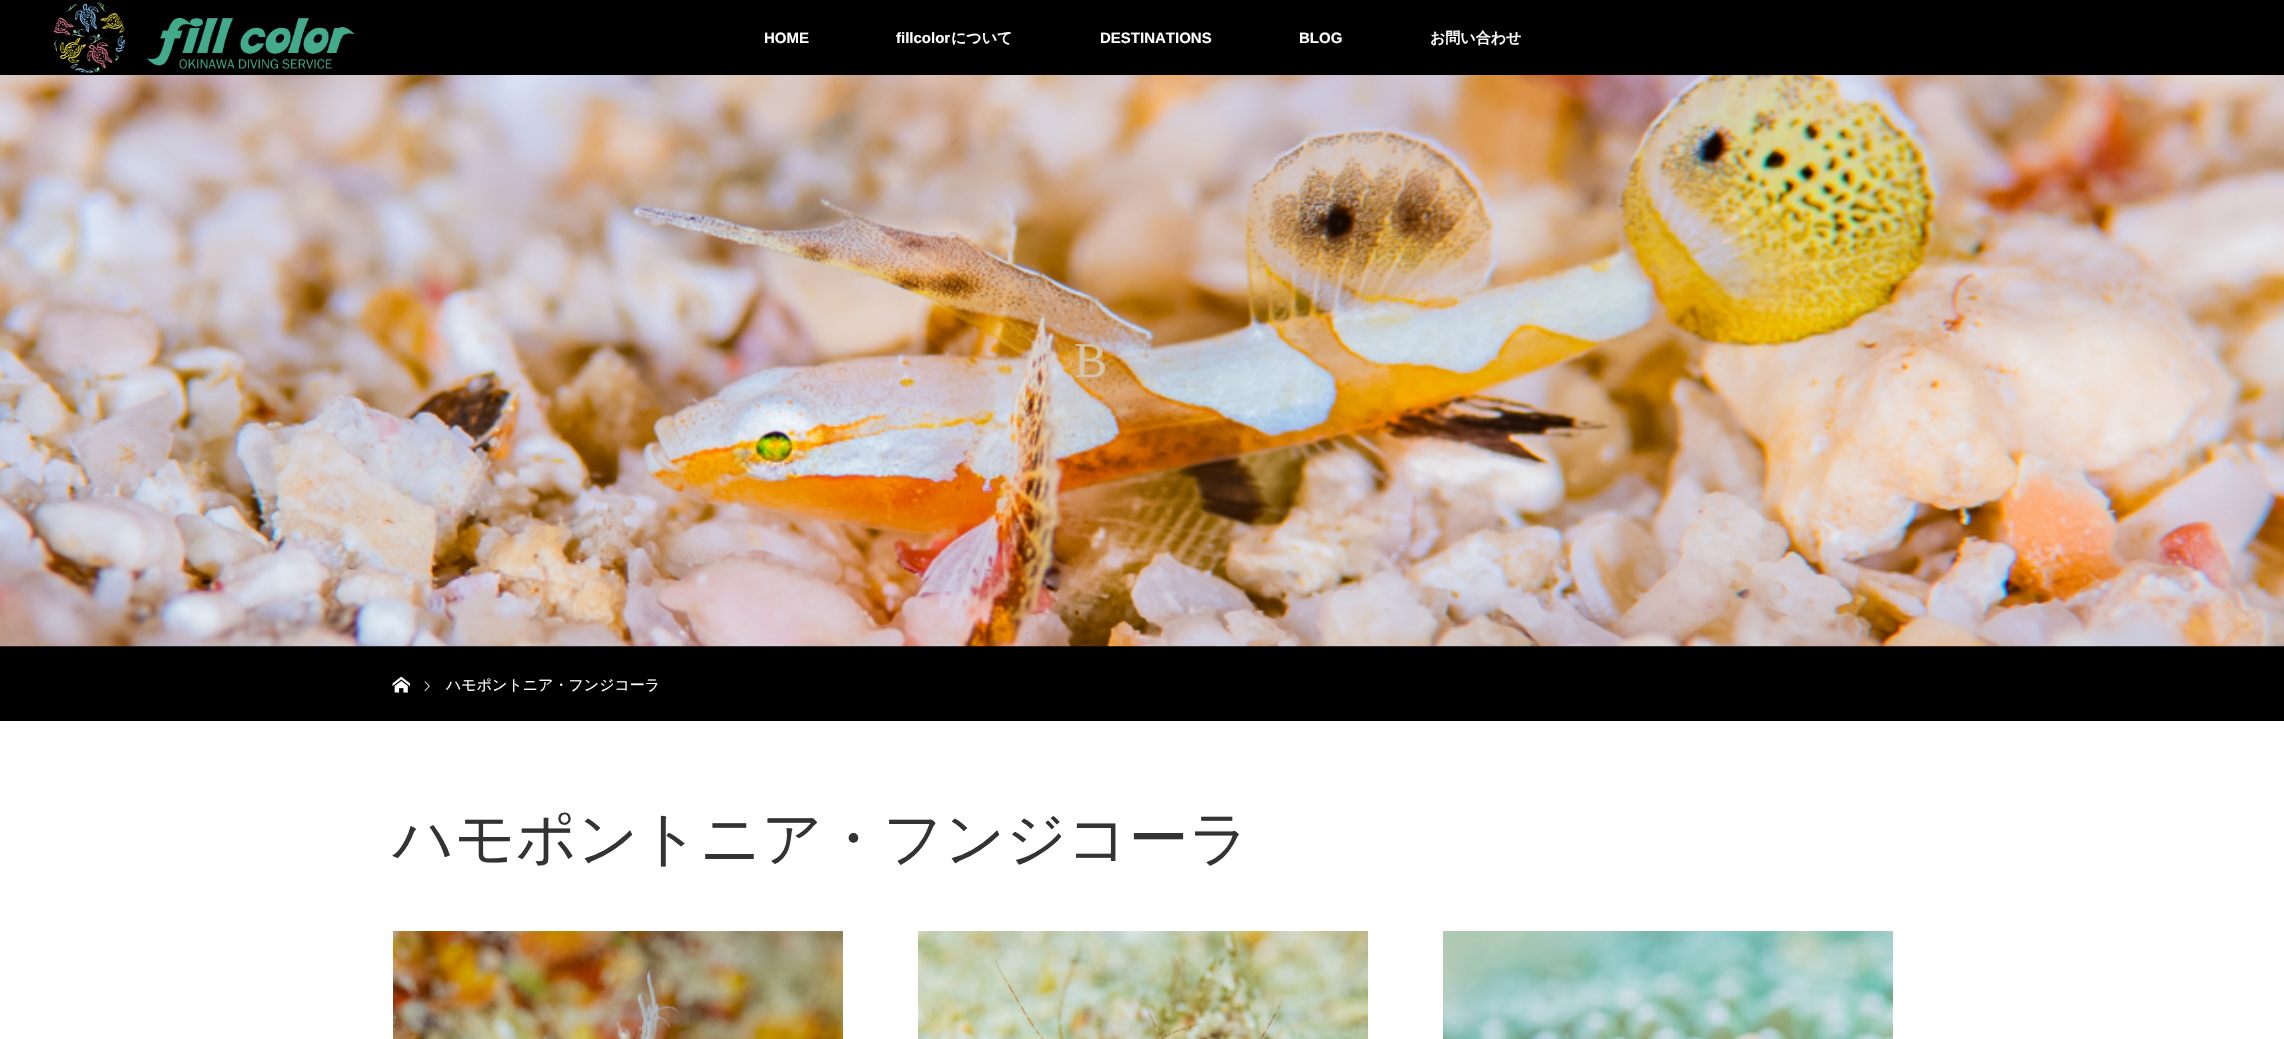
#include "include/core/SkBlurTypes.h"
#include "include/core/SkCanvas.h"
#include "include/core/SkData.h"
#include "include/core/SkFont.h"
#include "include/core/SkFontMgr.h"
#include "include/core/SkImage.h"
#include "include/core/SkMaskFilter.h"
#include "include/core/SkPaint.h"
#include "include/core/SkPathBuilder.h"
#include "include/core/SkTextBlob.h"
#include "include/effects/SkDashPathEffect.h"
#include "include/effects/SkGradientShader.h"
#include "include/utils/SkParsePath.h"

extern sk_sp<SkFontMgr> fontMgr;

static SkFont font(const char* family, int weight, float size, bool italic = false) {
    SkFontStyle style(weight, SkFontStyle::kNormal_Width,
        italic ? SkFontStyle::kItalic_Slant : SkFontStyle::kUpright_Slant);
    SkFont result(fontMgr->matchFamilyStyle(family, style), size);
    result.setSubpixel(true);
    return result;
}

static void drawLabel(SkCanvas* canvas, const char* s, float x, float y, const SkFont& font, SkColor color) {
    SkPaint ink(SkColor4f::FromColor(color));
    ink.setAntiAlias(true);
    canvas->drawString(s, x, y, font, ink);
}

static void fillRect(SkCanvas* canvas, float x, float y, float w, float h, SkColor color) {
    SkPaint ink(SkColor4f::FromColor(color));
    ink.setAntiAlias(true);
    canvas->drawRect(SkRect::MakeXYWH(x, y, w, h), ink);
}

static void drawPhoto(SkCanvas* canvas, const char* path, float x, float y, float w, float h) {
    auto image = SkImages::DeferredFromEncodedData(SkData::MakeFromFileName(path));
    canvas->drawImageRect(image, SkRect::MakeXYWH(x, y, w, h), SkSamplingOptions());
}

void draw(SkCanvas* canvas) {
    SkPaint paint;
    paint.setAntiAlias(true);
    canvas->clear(0xFFFFFFFF);
    fillRect(canvas, 0, 0, 2284, 75, 0xFF000000);
    drawPhoto(canvas, "assets/img1.png", 53, 2, 302, 71);
    SkFont font1 = font("Liberation Sans", 700, 15);
    drawLabel(canvas, "HOME", 764, 43, font1, 0xFFFFFFFF);
    drawLabel(canvas, "fillcolor", 896, 43, font1, 0xFFFFFFFF);
    SkFont font2 = font("WenQuanYi Zen Hei", 700, 15);
    drawLabel(canvas, "について", 951, 43, font2, 0xFFFFFFFF);
    drawLabel(canvas, "DESTINATIONS", 1100, 43, font1, 0xFFFFFFFF);
    drawLabel(canvas, "BLOG", 1299, 43, font1, 0xFFFFFFFF);
    drawLabel(canvas, "お問い合わせ", 1430, 43, font2, 0xFFFFFFFF);
    fillRect(canvas, 0, 646, 2284, 75, 0xFF000000);
    drawPhoto(canvas, "assets/img2.png", 0, 75, 2284, 572);
    SkFont font3 = font("Liberation Serif", 400, 50);
    drawLabel(canvas, "B", 1074, 377, font3, 0xFFD6C3AC);
    drawPhoto(canvas, "assets/img3.png", 392, 676, 18, 17);
    drawPhoto(canvas, "assets/img4.png", 424, 681, 6, 10);
    SkFont font4 = font("WenQuanYi Zen Hei", 500, 15);
    drawLabel(canvas, "ハモポントニア・フンジコーラ", 446, 690, font4, 0xFFFFFFFF);
    SkFont font5 = font("WenQuanYi Zen Hei", 500, 60);
    drawLabel(canvas, "ハモポントニア・フンジコーラ", 393, 859, font5, 0xFF333333);
    drawPhoto(canvas, "assets/img5.png", 393, 931, 450, 108);
    drawPhoto(canvas, "assets/img6.png", 918, 931, 450, 108);
    drawPhoto(canvas, "assets/img7.png", 1443, 931, 450, 108);
}
